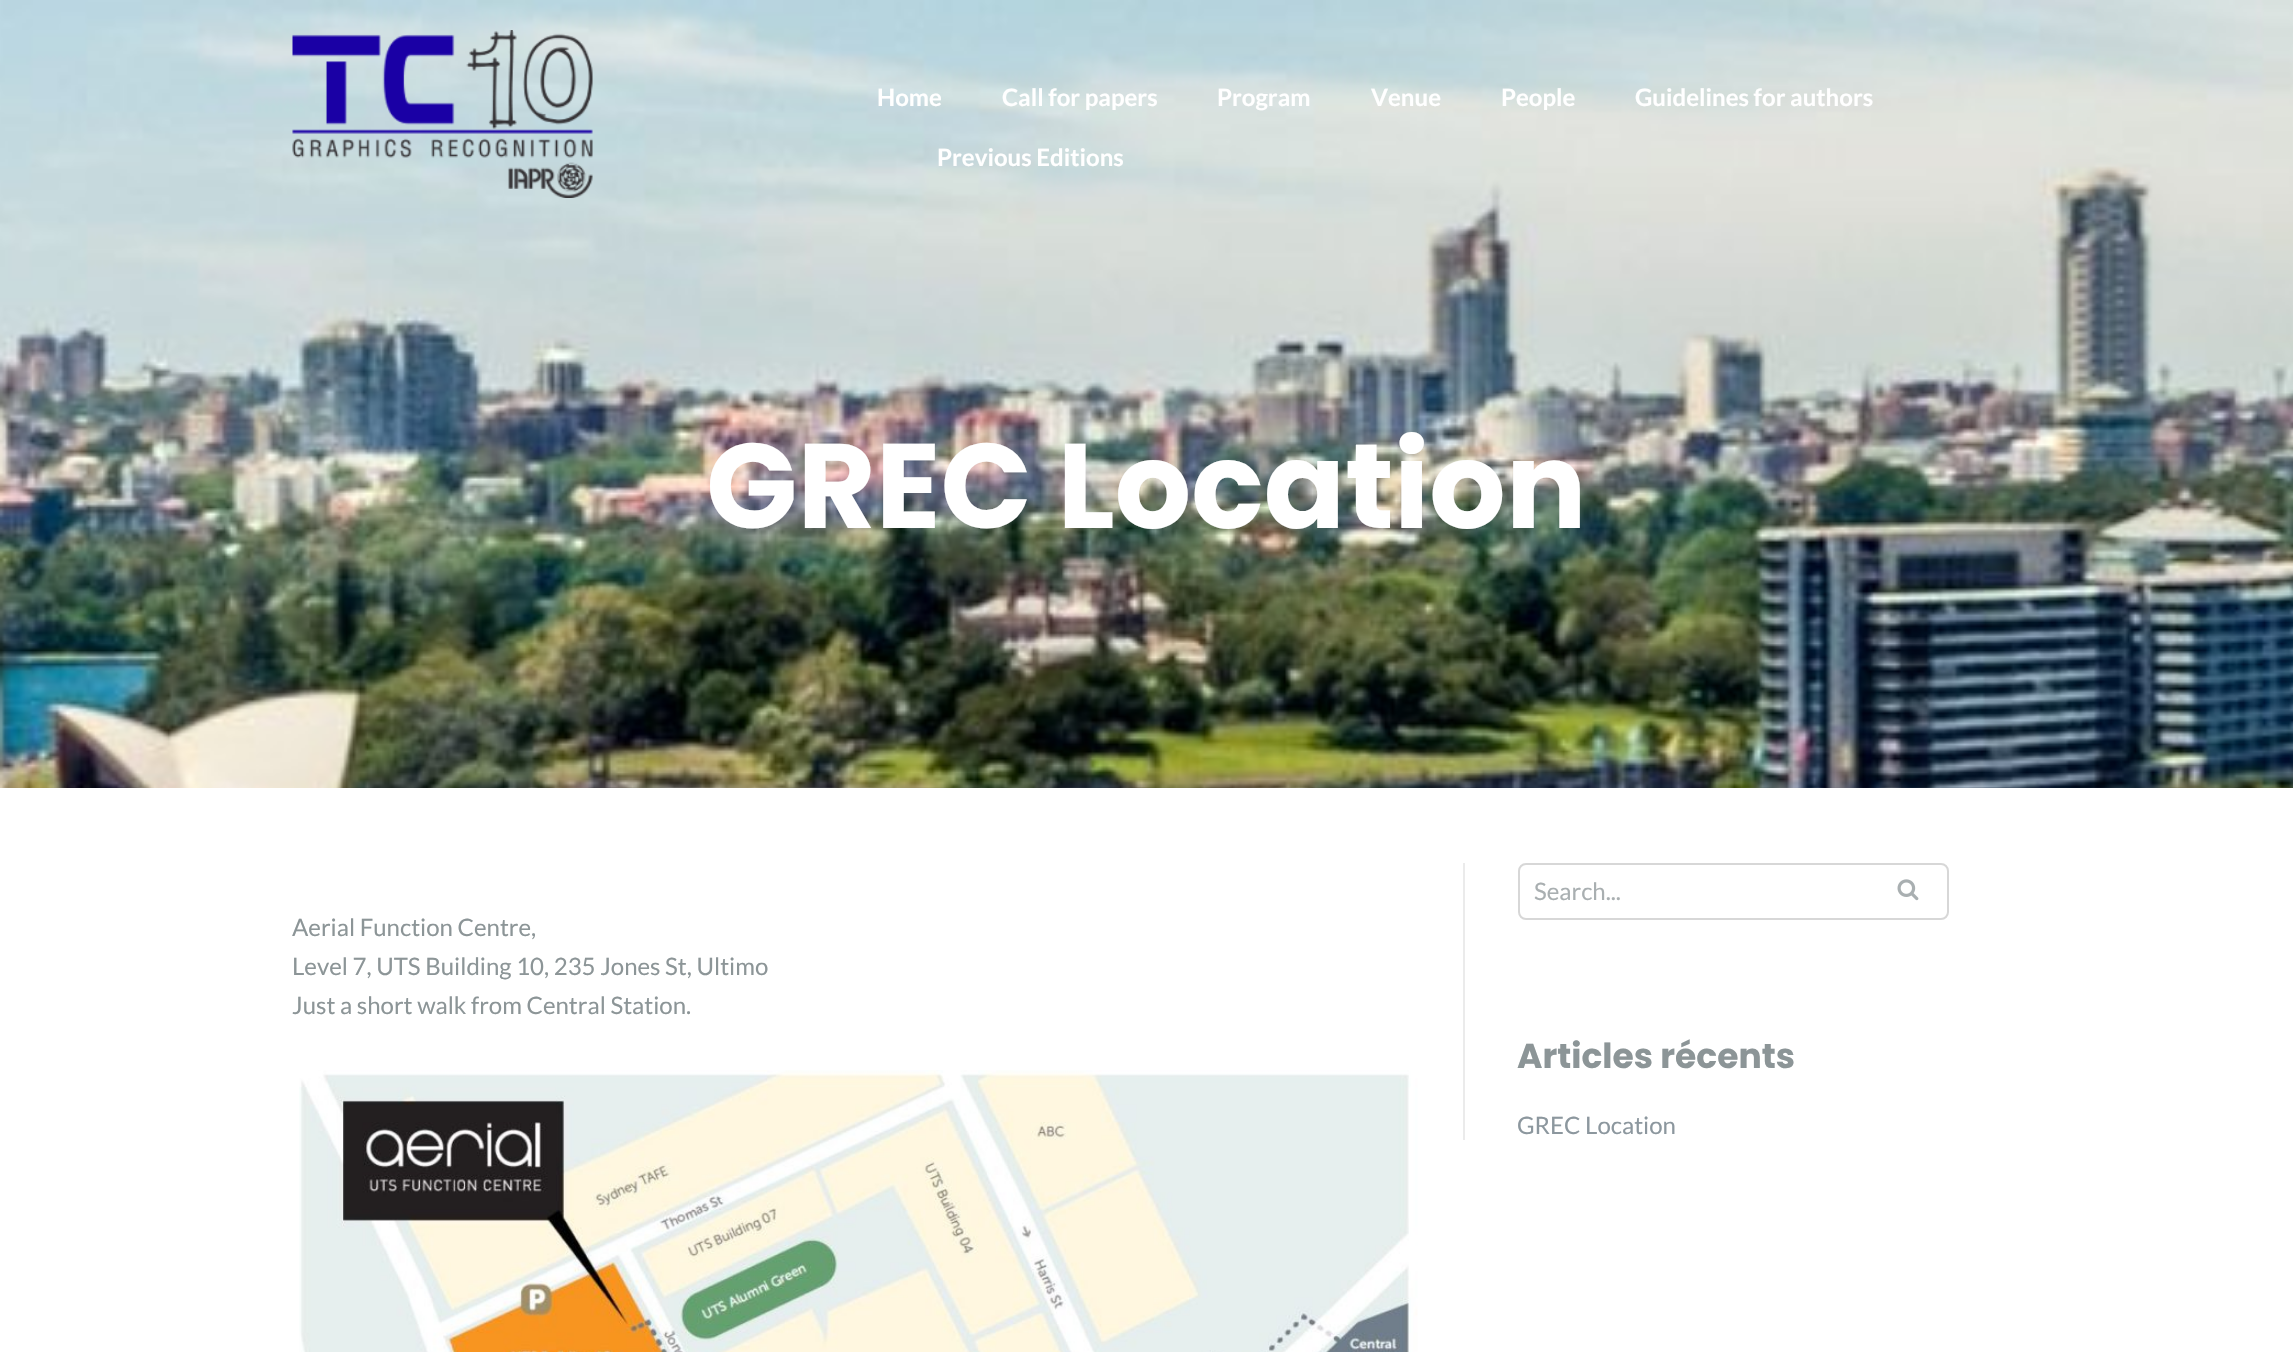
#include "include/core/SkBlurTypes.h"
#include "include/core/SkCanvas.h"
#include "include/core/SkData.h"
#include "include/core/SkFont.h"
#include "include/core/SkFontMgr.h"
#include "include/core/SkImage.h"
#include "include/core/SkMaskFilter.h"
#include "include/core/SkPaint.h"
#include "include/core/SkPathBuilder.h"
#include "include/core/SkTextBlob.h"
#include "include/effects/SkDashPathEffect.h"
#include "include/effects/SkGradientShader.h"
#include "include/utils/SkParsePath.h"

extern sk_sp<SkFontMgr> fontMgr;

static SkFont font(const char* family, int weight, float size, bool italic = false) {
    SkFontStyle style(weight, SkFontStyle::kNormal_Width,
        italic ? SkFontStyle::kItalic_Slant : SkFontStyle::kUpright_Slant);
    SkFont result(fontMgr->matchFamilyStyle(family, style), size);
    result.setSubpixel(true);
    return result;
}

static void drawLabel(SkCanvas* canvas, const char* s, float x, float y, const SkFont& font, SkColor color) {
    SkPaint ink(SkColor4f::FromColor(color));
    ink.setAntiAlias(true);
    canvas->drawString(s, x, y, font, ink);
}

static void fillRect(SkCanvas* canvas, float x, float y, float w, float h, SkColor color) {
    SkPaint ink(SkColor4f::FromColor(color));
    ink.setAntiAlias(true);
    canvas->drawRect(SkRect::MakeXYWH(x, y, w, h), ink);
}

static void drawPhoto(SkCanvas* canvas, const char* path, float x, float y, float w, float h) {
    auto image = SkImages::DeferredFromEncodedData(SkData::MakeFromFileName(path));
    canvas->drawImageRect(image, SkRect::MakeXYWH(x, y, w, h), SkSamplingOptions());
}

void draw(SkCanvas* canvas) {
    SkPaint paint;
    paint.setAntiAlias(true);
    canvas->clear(0xFFFFFFFF);
    drawPhoto(canvas, "assets/img1.png", 0, 0, 2293, 788);
    drawPhoto(canvas, "assets/img2.png", 292, 30, 301, 168);
    SkFont font1 = font("Lato", 700, 24);
    drawLabel(canvas, "Home", 877, 106, font1, 0xFFFFFFFF);
    drawLabel(canvas, "Call for papers", 1002, 106, font1, 0xFFFFFFFF);
    drawLabel(canvas, "Program", 1217, 106, font1, 0xFFFFFFFF);
    drawLabel(canvas, "Venue", 1371, 106, font1, 0xFFFFFFFF);
    drawLabel(canvas, "People", 1501, 106, font1, 0xFFFFFFFF);
    drawLabel(canvas, "Guidelines for authors", 1635, 106, font1, 0xFFFFFFFF);
    drawLabel(canvas, "Previous Editions", 937, 166, font1, 0xFFFFFFFF);
    SkFont font2 = font("Poppins", 700, 120);
    drawLabel(canvas, "GREC Location", 706, 528, font2, 0xFFFFFFFF);
    SkFont font3 = font("Lato", 400, 24);
    drawLabel(canvas, "Aerial Function Centre,", 292, 936, font3, 0xFF8C9597);
    drawLabel(canvas, "Level 7, UTS Building 10, 235 Jones St, Ultimo", 292, 975, font3, 0xFF8C9597);
    drawLabel(canvas, "Just a short walk from Central Station.", 292, 1014, font3, 0xFF8C9597);
    drawPhoto(canvas, "assets/img3.png", 299, 1070, 1119, 282);
    fillRect(canvas, 1463, 863, 2, 277, 0xFFEBEBEB);
    paint.setStroke(true);
    paint.setStrokeWidth(2);
    paint.setColor(0xFFD7D7D7);
    canvas->drawRoundRect(SkRect::MakeXYWH(1519, 864, 429, 55), 7, 7, paint);
    drawLabel(canvas, "Search...", 1534, 900, font3, 0xFFA9AFB1);
    drawPhoto(canvas, "assets/img4.png", 1897, 879, 22, 22);
    SkFont font4 = font("Poppins", 700, 34.5f);
    drawLabel(canvas, "Articles récents", 1517, 1068, font4, 0xFF8C9597);
    drawLabel(canvas, "GREC Location", 1517, 1134, font3, 0xFF8C979E);
}
